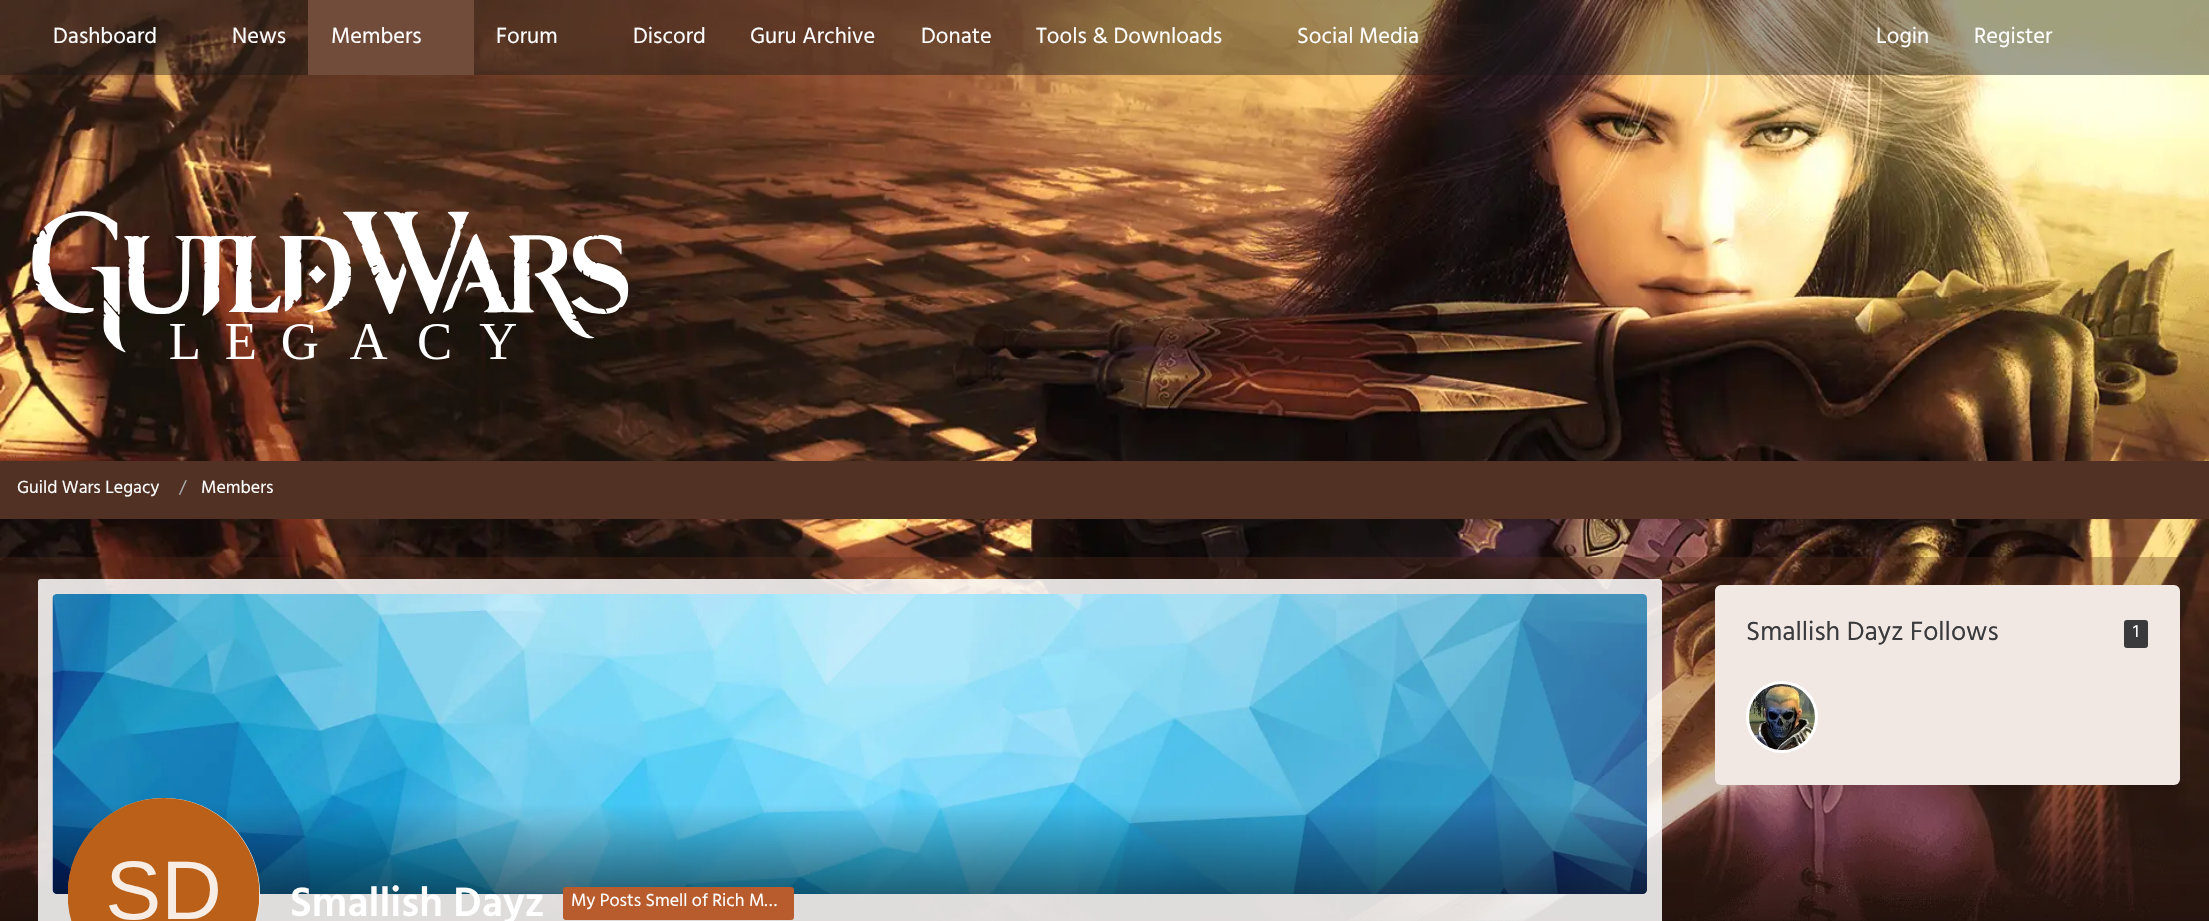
#include "include/core/SkBlurTypes.h"
#include "include/core/SkCanvas.h"
#include "include/core/SkData.h"
#include "include/core/SkFont.h"
#include "include/core/SkFontMgr.h"
#include "include/core/SkImage.h"
#include "include/core/SkMaskFilter.h"
#include "include/core/SkPaint.h"
#include "include/core/SkPathBuilder.h"
#include "include/core/SkTextBlob.h"
#include "include/effects/SkDashPathEffect.h"
#include "include/effects/SkGradientShader.h"
#include "include/utils/SkParsePath.h"

extern sk_sp<SkFontMgr> fontMgr;

static SkFont font(const char* family, int weight, float size, bool italic = false) {
    SkFontStyle style(weight, SkFontStyle::kNormal_Width,
        italic ? SkFontStyle::kItalic_Slant : SkFontStyle::kUpright_Slant);
    SkFont result(fontMgr->matchFamilyStyle(family, style), size);
    result.setSubpixel(true);
    return result;
}

static void drawLabel(SkCanvas* canvas, const char* s, float x, float y, const SkFont& font, SkColor color) {
    SkPaint ink(SkColor4f::FromColor(color));
    ink.setAntiAlias(true);
    canvas->drawString(s, x, y, font, ink);
}

static void fillRect(SkCanvas* canvas, float x, float y, float w, float h, SkColor color) {
    SkPaint ink(SkColor4f::FromColor(color));
    ink.setAntiAlias(true);
    canvas->drawRect(SkRect::MakeXYWH(x, y, w, h), ink);
}

static void fillRRect(SkCanvas* canvas, float x, float y, float w, float h, float radius, SkColor color) {
    SkPaint ink(SkColor4f::FromColor(color));
    ink.setAntiAlias(true);
    canvas->drawRoundRect(SkRect::MakeXYWH(x, y, w, h), radius, radius, ink);
}

static void drawPhoto(SkCanvas* canvas, const char* path, float x, float y, float w, float h) {
    auto image = SkImages::DeferredFromEncodedData(SkData::MakeFromFileName(path));
    canvas->drawImageRect(image, SkRect::MakeXYWH(x, y, w, h), SkSamplingOptions());
}

static SkPath parsePath(const char* data, bool evenOdd = false) {
    SkPath result = *SkParsePath::FromSVGString(data);
    if (evenOdd) result.setFillType(SkPathFillType::kEvenOdd);
    return result;
}

void draw(SkCanvas* canvas) {
    SkPaint paint;
    paint.setAntiAlias(true);
    canvas->clear(0xFF050304);
    drawPhoto(canvas, "assets/img1.png", 0, 0, 2209, 921);
    fillRect(canvas, 0, 0, 2209, 75, 0x66141414);
    SkFont font1 = font("Hind", 400, 22.5f);
    drawLabel(canvas, "Dashboard", 53, 43, font1, 0xFFFFFFFF);
    drawLabel(canvas, "News", 232, 43, font1, 0xFFFFFFFF);
    fillRect(canvas, 308, 0, 166, 75, 0xFF724C3A);
    drawLabel(canvas, "Members", 331, 43, font1, 0xFFFFFFFF);
    drawLabel(canvas, "Forum", 496, 43, font1, 0xFFFFFFFF);
    drawLabel(canvas, "Discord", 633, 43, font1, 0xFFFFFFFF);
    drawLabel(canvas, "Guru Archive", 750, 43, font1, 0xFFFFFFFF);
    drawLabel(canvas, "Donate", 921, 43, font1, 0xFFFFFFFF);
    drawLabel(canvas, "Tools & Downloads", 1036, 43, font1, 0xFFFFFFFF);
    drawLabel(canvas, "Social Media", 1297, 43, font1, 0xFFFFFFFF);
    drawLabel(canvas, "Login", 1876, 43, font1, 0xFFFFFFFF);
    drawLabel(canvas, "Register", 1974, 43, font1, 0xFFFFFFFF);
    drawPhoto(canvas, "assets/img2.png", 32, 211, 597, 149);
    fillRect(canvas, 0, 461, 2209, 58, 0xFF513124);
    SkFont font2 = font("Hind", 400, 18);
    drawLabel(canvas, "Guild Wars Legacy", 17, 493, font2, 0xFFFFFFFF);
    drawLabel(canvas, "/", 179, 493, font2, 0xFFAAAAAA);
    drawLabel(canvas, "Members", 201, 493, font2, 0xFFFFFFFF);
    fillRRect(canvas, 0, 557, 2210, 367, 3, 0x4D592B16);
    fillRRect(canvas, 1715, 585, 465, 200, 6, 0xFFF2E8E3);
    SkFont font3 = font("Hind", 400, 27);
    drawLabel(canvas, "Smallish Dayz Follows", 1746, 640, font3, 0xFF3A3A3D);
    fillRRect(canvas, 2124, 620, 24, 28, 3, 0xFF3A3A3D);
    drawLabel(canvas, "1", 2133, 637, font2, 0xFFFFFFFF);
    paint.setColor(0xFFFFFFFF);
    canvas->drawCircle(1782, 717, 34.5f, paint);
    paint.setStroke(true);
    paint.setStrokeWidth(3);
    canvas->drawCircle(1782, 717, 34.5f, paint);
    drawPhoto(canvas, "assets/img3.png", 1749, 684, 66, 66);
    fillRRect(canvas, 38, 579, 1624, 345, 3, 0xD9FFFFFF);
    drawPhoto(canvas, "assets/img4.png", 52, 594, 1595, 300);
    paint.setStroke(false);
    {
        const SkColor colors[] = {0x00000000, 0x80000000};
        const float stops[] = {0.7f, 1};
        const SkPoint ends[] = {{850, 594}, {850, 894}};
        paint.setShader(SkGradientShader::MakeLinear(ends, colors, stops, 2, SkTileMode::kClamp));
        paint.setAlpha(255);
    }
    canvas->drawPath(parsePath("M53 594H1647V889C1647 892 1645 894 1642 894H58C55 894 53 892 53 889Z"), paint);
    paint.setShader(nullptr);
    paint.setColor(0xFFFFFFFF);
    canvas->drawCircle(164, 894, 96, paint);
    drawPhoto(canvas, "assets/img5.png", 68, 798, 192, 123);
    SkFont font4 = font("Hind", 600, 42);
    drawLabel(canvas, "Smallish Dayz", 290, 916, font4, 0xFFFFFFFF);
    fillRRect(canvas, 563, 887, 231, 33, 3, 0xFFB85C2E);
    drawLabel(canvas, "My Posts Smell of Rich M…", 571, 906, font2, 0xFFFFFFFF);
}
